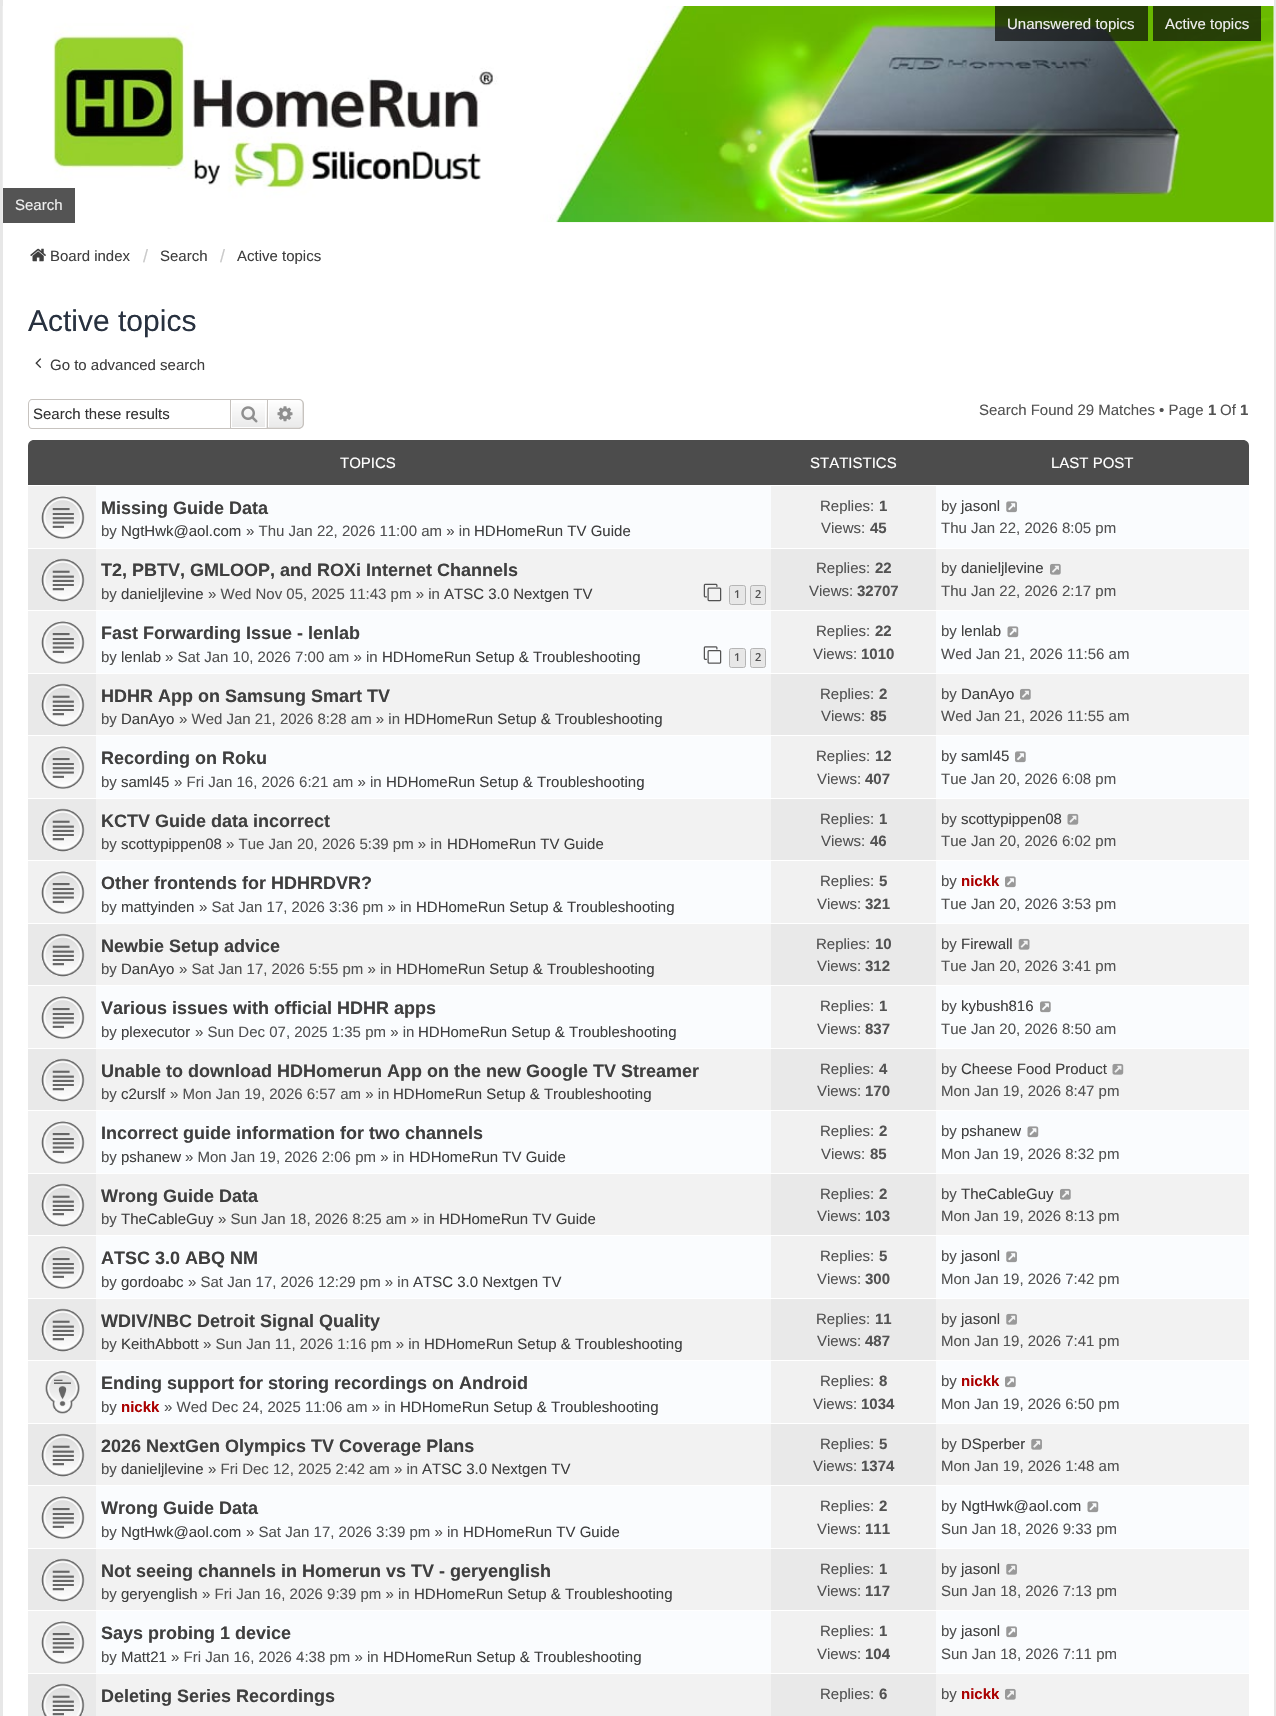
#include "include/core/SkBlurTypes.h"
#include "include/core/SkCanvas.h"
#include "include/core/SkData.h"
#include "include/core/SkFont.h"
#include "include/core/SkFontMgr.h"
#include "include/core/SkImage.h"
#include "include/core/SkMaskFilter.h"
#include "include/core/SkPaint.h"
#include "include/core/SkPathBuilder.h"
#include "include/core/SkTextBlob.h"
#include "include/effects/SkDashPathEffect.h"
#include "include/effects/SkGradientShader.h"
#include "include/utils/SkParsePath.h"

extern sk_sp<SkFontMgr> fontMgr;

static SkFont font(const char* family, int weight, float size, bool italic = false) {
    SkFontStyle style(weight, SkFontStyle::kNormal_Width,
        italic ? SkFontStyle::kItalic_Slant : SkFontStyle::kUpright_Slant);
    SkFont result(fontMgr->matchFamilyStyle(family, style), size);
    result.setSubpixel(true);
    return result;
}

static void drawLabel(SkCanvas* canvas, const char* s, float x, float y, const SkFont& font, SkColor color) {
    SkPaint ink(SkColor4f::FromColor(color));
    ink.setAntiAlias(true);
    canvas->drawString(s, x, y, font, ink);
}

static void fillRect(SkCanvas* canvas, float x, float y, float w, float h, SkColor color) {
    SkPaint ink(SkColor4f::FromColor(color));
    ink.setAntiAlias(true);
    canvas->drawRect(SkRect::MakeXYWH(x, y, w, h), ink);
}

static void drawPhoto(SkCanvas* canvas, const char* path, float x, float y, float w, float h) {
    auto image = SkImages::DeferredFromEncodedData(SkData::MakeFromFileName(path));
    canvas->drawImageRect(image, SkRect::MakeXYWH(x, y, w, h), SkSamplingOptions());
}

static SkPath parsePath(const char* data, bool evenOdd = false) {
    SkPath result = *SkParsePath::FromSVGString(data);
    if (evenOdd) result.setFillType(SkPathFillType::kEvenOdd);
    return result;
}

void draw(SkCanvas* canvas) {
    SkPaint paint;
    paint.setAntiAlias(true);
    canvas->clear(0xFFFFFFFF);
    fillRect(canvas, 1274, 0, 2, 1716, 0xFFE7E7E7);
    fillRect(canvas, 0, 0, 3, 1716, 0xFFE7E7E7);
    drawPhoto(canvas, "assets/img1.png", 2, 6, 1272, 217);
    fillRect(canvas, 995, 6, 153, 35, 0xB30A0A0A);
    SkFont font1 = font("Liberation Sans", 400, 15);
    drawLabel(canvas, "Unanswered topics", 1007, 29, font1, 0xFFEEEEEE);
    fillRect(canvas, 1153, 6, 108, 35, 0xB30A0A0A);
    drawLabel(canvas, "Active topics", 1165, 29, font1, 0xFFEEEEEE);
    fillRect(canvas, 3, 188, 72, 35, 0xFF545454);
    drawLabel(canvas, "Search", 15, 210, font1, 0xFFEEEEEE);
    drawPhoto(canvas, "assets/img2.png", 30, 248, 16, 14);
    drawLabel(canvas, "Board index", 50, 261, font1, 0xFF3F3F3F);
    SkFont font2 = font("Liberation Sans", 400, 18);
    drawLabel(canvas, "/", 143, 262, font2, 0xFFCACACA);
    drawLabel(canvas, "Search", 160, 261, font1, 0xFF3F3F3F);
    drawLabel(canvas, "/", 220, 262, font2, 0xFFCACACA);
    drawLabel(canvas, "Active topics", 237, 261, font1, 0xFF3F3F3F);
    SkFont font3 = font("Liberation Sans", 400, 30);
    drawLabel(canvas, "Active topics", 28, 331, font3, 0xFF28313F);
    drawPhoto(canvas, "assets/img3.png", 35, 358, 7, 10);
    drawLabel(canvas, "Go to advanced search", 50, 370, font1, 0xFF3F3F3F);
    paint.setColor(0xFFC7C3BF);
    canvas->drawPath(parsePath("M32 399H230V429H32C30 429 28 427 28 424V404C28 401 30 399 32 399ZM32 400H230V428H32C30 428 29 426 29 424V404C29 402 30 400 32 400Z", true), paint);
    drawLabel(canvas, "Search these results", 33, 419, font1, 0xFF333333);
    {
        const SkColor colors[] = {0xFFFFFFFF, 0xFFE9E9E9};
        const float stops[] = {0, 1};
        const SkPoint ends[] = {{249, 400}, {249, 428}};
        paint.setShader(SkGradientShader::MakeLinear(ends, colors, stops, 2, SkTileMode::kClamp));
        paint.setAlpha(255);
    }
    canvas->drawRect(SkRect::MakeXYWH(232, 403, 35, 25), paint);
    paint.setStroke(true);
    paint.setStrokeWidth(1);
    paint.setShader(nullptr);
    paint.setColor(0xFFFFFFFF);
    canvas->drawRect(SkRect::MakeXYWH(231.5f, 400.5f, 34, 27), paint);
    paint.setColor(0xFFC7C3BF);
    canvas->drawRect(SkRect::MakeXYWH(230.5f, 399.5f, 37, 29), paint);
    drawPhoto(canvas, "assets/img4.png", 241, 406, 17, 17);
    paint.setStroke(false);
    {
        const SkColor colors[] = {0xFFFFFFFF, 0xFFE9E9E9};
        const float stops[] = {0, 1};
        const SkPoint ends[] = {{285, 400}, {285, 428}};
        paint.setShader(SkGradientShader::MakeLinear(ends, colors, stops, 2, SkTileMode::kClamp));
        paint.setAlpha(255);
    }
    canvas->drawPath(parsePath("M268.5 400.5H299C301 400.5 302.5 402 302.5 404V424C302.5 426 301 427.5 299 427.5H268.5Z"), paint);
    paint.setStroke(true);
    paint.setShader(nullptr);
    paint.setColor(0xFFFFFFFF);
    canvas->drawPath(parsePath("M268.5 400.5H299C301 400.5 302.5 402 302.5 404V424C302.5 426 301 427.5 299 427.5H268.5Z"), paint);
    paint.setStroke(false);
    paint.setColor(0xFFC7C3BF);
    canvas->drawPath(parsePath("M267.5 399H299C301.5 399 304 401 304 404V424C304 426.5 301.5 429 299 429H267.5ZM267.5 400H299C301 400 302.5 401.5 302.5 404V424C302.5 426 301 427.5 299 427.5H267.5Z", true), paint);
    drawPhoto(canvas, "assets/img5.png", 277, 406, 16, 16);
    drawLabel(canvas, "Search Found 29 Matches • Page", 979, 415, font1, 0xFF525252);
    SkFont font4 = font("Liberation Sans", 700, 15);
    drawLabel(canvas, "1", 1208, 415, font4, 0xFF525252);
    drawLabel(canvas, "Of", 1220, 415, font1, 0xFF525252);
    drawLabel(canvas, "1", 1240, 415, font4, 0xFF525252);
    paint.setColor(0xFF4C4C4C);
    canvas->drawPath(parsePath("M34 440H1243C1246.5 440 1249 442.5 1249 446V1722H28V446C28 442.5 30.5 440 34 440Z"), paint);
    drawLabel(canvas, "TOPICS", 340, 468, font1, 0xFFFFFFFF);
    drawLabel(canvas, "STATISTICS", 810, 468, font1, 0xFFFFFFFF);
    drawLabel(canvas, "LAST POST", 1051, 468, font1, 0xFFFFFFFF);
    fillRect(canvas, 96, 486, 1153, 1187, 0xFFFAFCFE);
    fillRect(canvas, 28, 485, 1221, 1, 0xFFFFFFFF);
    fillRect(canvas, 28, 486, 68, 62, 0xFFF1F1F1);
    drawPhoto(canvas, "assets/img6.png", 41, 496, 44, 43);
    SkFont font5 = font("Liberation Sans", 700, 18);
    drawLabel(canvas, "Missing Guide Data", 101, 514, font5, 0xFF3F3F3F);
    drawLabel(canvas, "by", 101, 536, font1, 0xFF525252);
    drawLabel(canvas, "NgtHwk@aol.com", 121, 536, font1, 0xFF3F3F3F);
    drawLabel(canvas, "» Thu Jan 22, 2026 11:00 am » in", 246, 536, font1, 0xFF525252);
    drawLabel(canvas, "HDHomeRun TV Guide", 474, 536, font1, 0xFF3F3F3F);
    fillRect(canvas, 771, 486, 165, 62, 0xFFF1F1F1);
    drawLabel(canvas, "Replies:", 820, 511, font1, 0xFF525252);
    drawLabel(canvas, "1", 879, 511, font4, 0xFF525252);
    drawLabel(canvas, "Views:", 821, 533, font1, 0xFF525252);
    drawLabel(canvas, "45", 870, 533, font4, 0xFF525252);
    drawLabel(canvas, "by", 941, 511, font1, 0xFF525252);
    drawLabel(canvas, "jasonl", 961, 511, font1, 0xFF3F3F3F);
    drawPhoto(canvas, "assets/img7.png", 1006, 501, 11, 12);
    drawLabel(canvas, "Thu Jan 22, 2026 8:05 pm", 941, 533, font1, 0xFF525252);
    fillRect(canvas, 96, 549, 1153, 61, 0xFFF2F2F2);
    fillRect(canvas, 28, 548, 1221, 1, 0xFFFFFFFF);
    fillRect(canvas, 28, 549, 68, 61, 0xFFE9E9E9);
    drawPhoto(canvas, "assets/img8.png", 41, 558, 44, 44);
    drawLabel(canvas, "T2, PBTV, GMLOOP, and ROXi Internet Channels", 101, 576, font5, 0xFF3F3F3F);
    drawLabel(canvas, "by", 101, 599, font1, 0xFF525252);
    drawLabel(canvas, "danieljlevine", 121, 599, font1, 0xFF3F3F3F);
    drawLabel(canvas, "» Wed Nov 05, 2025 11:43 pm » in", 208, 599, font1, 0xFF525252);
    drawLabel(canvas, "ATSC 3.0 Nextgen TV", 444, 599, font1, 0xFF3F3F3F);
    drawPhoto(canvas, "assets/img9.png", 703, 583, 19, 19);
    paint.setColor(0xFFE7E7E7);
    canvas->drawRoundRect(SkRect::MakeXYWH(729.5f, 585.5f, 16, 19), 2, 2, paint);
    paint.setStroke(true);
    paint.setColor(0xFFB5B5B5);
    canvas->drawRoundRect(SkRect::MakeXYWH(729.5f, 585.5f, 16, 19), 2, 2, paint);
    SkFont font6 = font("Open Sans", 600, 11);
    drawLabel(canvas, "1", 734, 598, font6, 0xFF525252);
    paint.setStroke(false);
    paint.setColor(0xFFE7E7E7);
    canvas->drawRoundRect(SkRect::MakeXYWH(750.5f, 585.5f, 15, 19), 2, 2, paint);
    paint.setStroke(true);
    paint.setColor(0xFFB5B5B5);
    canvas->drawRoundRect(SkRect::MakeXYWH(750.5f, 585.5f, 15, 19), 2, 2, paint);
    drawLabel(canvas, "2", 755, 598, font6, 0xFF525252);
    fillRect(canvas, 771, 549, 165, 61, 0xFFE9E9E9);
    drawLabel(canvas, "Replies:", 816, 573, font1, 0xFF525252);
    drawLabel(canvas, "22", 875, 573, font4, 0xFF525252);
    drawLabel(canvas, "Views:", 809, 596, font1, 0xFF525252);
    drawLabel(canvas, "32707", 857, 596, font4, 0xFF525252);
    drawLabel(canvas, "by", 941, 573, font1, 0xFF525252);
    drawLabel(canvas, "danieljlevine", 961, 573, font1, 0xFF3F3F3F);
    drawPhoto(canvas, "assets/img10.png", 1050, 563, 11, 12);
    drawLabel(canvas, "Thu Jan 22, 2026 2:17 pm", 941, 596, font1, 0xFF525252);
    fillRect(canvas, 28, 610, 1221, 1, 0xFFFFFFFF);
    fillRect(canvas, 28, 611, 68, 62, 0xFFF1F1F1);
    drawPhoto(canvas, "assets/img6.png", 41, 621, 44, 43);
    drawLabel(canvas, "Fast Forwarding Issue - lenlab", 101, 639, font5, 0xFF3F3F3F);
    drawLabel(canvas, "by", 101, 662, font1, 0xFF525252);
    drawLabel(canvas, "lenlab", 121, 662, font1, 0xFF3F3F3F);
    drawLabel(canvas, "» Sat Jan 10, 2026 7:00 am » in", 165, 662, font1, 0xFF525252);
    drawLabel(canvas, "HDHomeRun Setup & Troubleshooting", 382, 662, font1, 0xFF3F3F3F);
    drawPhoto(canvas, "assets/img11.png", 703, 646, 19, 18);
    paint.setStroke(false);
    paint.setColor(0xFFE7E7E7);
    canvas->drawRoundRect(SkRect::MakeXYWH(729.5f, 648.5f, 16, 19), 2, 2, paint);
    paint.setStroke(true);
    paint.setColor(0xFFB5B5B5);
    canvas->drawRoundRect(SkRect::MakeXYWH(729.5f, 648.5f, 16, 19), 2, 2, paint);
    drawLabel(canvas, "1", 734, 661, font6, 0xFF525252);
    paint.setStroke(false);
    paint.setColor(0xFFE7E7E7);
    canvas->drawRoundRect(SkRect::MakeXYWH(750.5f, 648.5f, 15, 19), 2, 2, paint);
    paint.setStroke(true);
    paint.setColor(0xFFB5B5B5);
    canvas->drawRoundRect(SkRect::MakeXYWH(750.5f, 648.5f, 15, 19), 2, 2, paint);
    drawLabel(canvas, "2", 755, 661, font6, 0xFF525252);
    fillRect(canvas, 771, 611, 165, 62, 0xFFF1F1F1);
    drawLabel(canvas, "Replies:", 816, 636, font1, 0xFF525252);
    drawLabel(canvas, "22", 875, 636, font4, 0xFF525252);
    drawLabel(canvas, "Views:", 813, 659, font1, 0xFF525252);
    drawLabel(canvas, "1010", 861, 659, font4, 0xFF525252);
    drawLabel(canvas, "by", 941, 636, font1, 0xFF525252);
    drawLabel(canvas, "lenlab", 961, 636, font1, 0xFF3F3F3F);
    drawPhoto(canvas, "assets/img12.png", 1007, 626, 12, 12);
    drawLabel(canvas, "Wed Jan 21, 2026 11:56 am", 941, 659, font1, 0xFF525252);
    fillRect(canvas, 96, 674, 1153, 61, 0xFFF2F2F2);
    fillRect(canvas, 28, 673, 1221, 1, 0xFFFFFFFF);
    fillRect(canvas, 28, 674, 68, 61, 0xFFE9E9E9);
    drawPhoto(canvas, "assets/img8.png", 41, 683, 44, 44);
    drawLabel(canvas, "HDHR App on Samsung Smart TV", 101, 702, font5, 0xFF3F3F3F);
    drawLabel(canvas, "by", 101, 724, font1, 0xFF525252);
    drawLabel(canvas, "DanAyo", 121, 724, font1, 0xFF3F3F3F);
    drawLabel(canvas, "» Wed Jan 21, 2026 8:28 am » in", 179, 724, font1, 0xFF525252);
    drawLabel(canvas, "HDHomeRun Setup & Troubleshooting", 404, 724, font1, 0xFF3F3F3F);
    fillRect(canvas, 771, 674, 165, 61, 0xFFE9E9E9);
    drawLabel(canvas, "Replies:", 820, 699, font1, 0xFF525252);
    drawLabel(canvas, "2", 879, 699, font4, 0xFF525252);
    drawLabel(canvas, "Views:", 821, 721, font1, 0xFF525252);
    drawLabel(canvas, "85", 870, 721, font4, 0xFF525252);
    drawLabel(canvas, "by", 941, 699, font1, 0xFF525252);
    drawLabel(canvas, "DanAyo", 961, 699, font1, 0xFF3F3F3F);
    drawPhoto(canvas, "assets/img10.png", 1020, 688, 11, 12);
    drawLabel(canvas, "Wed Jan 21, 2026 11:55 am", 941, 721, font1, 0xFF525252);
    fillRect(canvas, 28, 735, 1221, 1, 0xFFFFFFFF);
    fillRect(canvas, 28, 736, 68, 62, 0xFFF1F1F1);
    drawPhoto(canvas, "assets/img6.png", 41, 746, 44, 43);
    drawLabel(canvas, "Recording on Roku", 101, 764, font5, 0xFF3F3F3F);
    drawLabel(canvas, "by", 101, 787, font1, 0xFF525252);
    drawLabel(canvas, "saml45", 121, 787, font1, 0xFF3F3F3F);
    drawLabel(canvas, "» Fri Jan 16, 2026 6:21 am » in", 174, 787, font1, 0xFF525252);
    drawLabel(canvas, "HDHomeRun Setup & Troubleshooting", 386, 787, font1, 0xFF3F3F3F);
    fillRect(canvas, 771, 736, 165, 62, 0xFFF1F1F1);
    drawLabel(canvas, "Replies:", 816, 761, font1, 0xFF525252);
    drawLabel(canvas, "12", 875, 761, font4, 0xFF525252);
    drawLabel(canvas, "Views:", 817, 784, font1, 0xFF525252);
    drawLabel(canvas, "407", 865, 784, font4, 0xFF525252);
    drawLabel(canvas, "by", 941, 761, font1, 0xFF525252);
    drawLabel(canvas, "saml45", 961, 761, font1, 0xFF3F3F3F);
    drawPhoto(canvas, "assets/img13.png", 1015, 751, 11, 12);
    drawLabel(canvas, "Tue Jan 20, 2026 6:08 pm", 941, 784, font1, 0xFF525252);
    fillRect(canvas, 96, 799, 1153, 61, 0xFFF2F2F2);
    fillRect(canvas, 28, 798, 1221, 1, 0xFFFFFFFF);
    fillRect(canvas, 28, 799, 68, 61, 0xFFE9E9E9);
    drawPhoto(canvas, "assets/img8.png", 41, 808, 44, 44);
    drawLabel(canvas, "KCTV Guide data incorrect", 101, 827, font5, 0xFF3F3F3F);
    drawLabel(canvas, "by", 101, 849, font1, 0xFF525252);
    drawLabel(canvas, "scottypippen08", 121, 849, font1, 0xFF3F3F3F);
    drawLabel(canvas, "» Tue Jan 20, 2026 5:39 pm » in", 226, 849, font1, 0xFF525252);
    drawLabel(canvas, "HDHomeRun TV Guide", 447, 849, font1, 0xFF3F3F3F);
    fillRect(canvas, 771, 799, 165, 61, 0xFFE9E9E9);
    drawLabel(canvas, "Replies:", 820, 824, font1, 0xFF525252);
    drawLabel(canvas, "1", 879, 824, font4, 0xFF525252);
    drawLabel(canvas, "Views:", 821, 846, font1, 0xFF525252);
    drawLabel(canvas, "46", 870, 846, font4, 0xFF525252);
    drawLabel(canvas, "by", 941, 824, font1, 0xFF525252);
    drawLabel(canvas, "scottypippen08", 961, 824, font1, 0xFF3F3F3F);
    drawPhoto(canvas, "assets/img14.png", 1067, 813, 12, 12);
    drawLabel(canvas, "Tue Jan 20, 2026 6:02 pm", 941, 846, font1, 0xFF525252);
    fillRect(canvas, 28, 860, 1221, 1, 0xFFFFFFFF);
    fillRect(canvas, 28, 861, 68, 62, 0xFFF1F1F1);
    drawPhoto(canvas, "assets/img6.png", 41, 871, 44, 43);
    drawLabel(canvas, "Other frontends for HDHRDVR?", 101, 889, font5, 0xFF3F3F3F);
    drawLabel(canvas, "by", 101, 912, font1, 0xFF525252);
    drawLabel(canvas, "mattyinden", 121, 912, font1, 0xFF3F3F3F);
    drawLabel(canvas, "» Sat Jan 17, 2026 3:36 pm » in", 199, 912, font1, 0xFF525252);
    drawLabel(canvas, "HDHomeRun Setup & Troubleshooting", 416, 912, font1, 0xFF3F3F3F);
    fillRect(canvas, 771, 861, 165, 62, 0xFFF1F1F1);
    drawLabel(canvas, "Replies:", 820, 886, font1, 0xFF525252);
    drawLabel(canvas, "5", 879, 886, font4, 0xFF525252);
    drawLabel(canvas, "Views:", 817, 909, font1, 0xFF525252);
    drawLabel(canvas, "321", 865, 909, font4, 0xFF525252);
    drawLabel(canvas, "by", 941, 886, font1, 0xFF525252);
    drawLabel(canvas, "nickk", 961, 886, font4, 0xFFAA0000);
    drawPhoto(canvas, "assets/img13.png", 1005, 876, 11, 12);
    drawLabel(canvas, "Tue Jan 20, 2026 3:53 pm", 941, 909, font1, 0xFF525252);
    fillRect(canvas, 96, 924, 1153, 61, 0xFFF2F2F2);
    fillRect(canvas, 28, 923, 1221, 1, 0xFFFFFFFF);
    fillRect(canvas, 28, 924, 68, 61, 0xFFE9E9E9);
    drawPhoto(canvas, "assets/img8.png", 41, 933, 44, 44);
    drawLabel(canvas, "Newbie Setup advice", 101, 952, font5, 0xFF3F3F3F);
    drawLabel(canvas, "by", 101, 974, font1, 0xFF525252);
    drawLabel(canvas, "DanAyo", 121, 974, font1, 0xFF3F3F3F);
    drawLabel(canvas, "» Sat Jan 17, 2026 5:55 pm » in", 179, 974, font1, 0xFF525252);
    drawLabel(canvas, "HDHomeRun Setup & Troubleshooting", 396, 974, font1, 0xFF3F3F3F);
    fillRect(canvas, 771, 924, 165, 61, 0xFFE9E9E9);
    drawLabel(canvas, "Replies:", 816, 949, font1, 0xFF525252);
    drawLabel(canvas, "10", 875, 949, font4, 0xFF525252);
    drawLabel(canvas, "Views:", 817, 971, font1, 0xFF525252);
    drawLabel(canvas, "312", 865, 971, font4, 0xFF525252);
    drawLabel(canvas, "by", 941, 949, font1, 0xFF525252);
    drawLabel(canvas, "Firewall", 961, 949, font1, 0xFF3F3F3F);
    drawPhoto(canvas, "assets/img15.png", 1018, 938, 12, 12);
    drawLabel(canvas, "Tue Jan 20, 2026 3:41 pm", 941, 971, font1, 0xFF525252);
    fillRect(canvas, 28, 985, 1221, 1, 0xFFFFFFFF);
    fillRect(canvas, 28, 986, 68, 62, 0xFFF1F1F1);
    drawPhoto(canvas, "assets/img6.png", 41, 996, 44, 43);
    drawLabel(canvas, "Various issues with official HDHR apps", 101, 1014, font5, 0xFF3F3F3F);
    drawLabel(canvas, "by", 101, 1037, font1, 0xFF525252);
    drawLabel(canvas, "plexecutor", 121, 1037, font1, 0xFF3F3F3F);
    drawLabel(canvas, "» Sun Dec 07, 2025 1:35 pm » in", 195, 1037, font1, 0xFF525252);
    drawLabel(canvas, "HDHomeRun Setup & Troubleshooting", 418, 1037, font1, 0xFF3F3F3F);
    fillRect(canvas, 771, 986, 165, 62, 0xFFF1F1F1);
    drawLabel(canvas, "Replies:", 820, 1011, font1, 0xFF525252);
    drawLabel(canvas, "1", 879, 1011, font4, 0xFF525252);
    drawLabel(canvas, "Views:", 817, 1034, font1, 0xFF525252);
    drawLabel(canvas, "837", 865, 1034, font4, 0xFF525252);
    drawLabel(canvas, "by", 941, 1011, font1, 0xFF525252);
    drawLabel(canvas, "kybush816", 961, 1011, font1, 0xFF3F3F3F);
    drawPhoto(canvas, "assets/img13.png", 1040, 1001, 11, 12);
    drawLabel(canvas, "Tue Jan 20, 2026 8:50 am", 941, 1034, font1, 0xFF525252);
    fillRect(canvas, 96, 1049, 1153, 61, 0xFFF2F2F2);
    fillRect(canvas, 28, 1048, 1221, 1, 0xFFFFFFFF);
    fillRect(canvas, 28, 1049, 68, 61, 0xFFE9E9E9);
    drawPhoto(canvas, "assets/img8.png", 41, 1058, 44, 44);
    drawLabel(canvas, "Unable to download HDHomerun App on the new Google TV Streamer", 101, 1077, font5, 0xFF3F3F3F);
    drawLabel(canvas, "by", 101, 1099, font1, 0xFF525252);
    drawLabel(canvas, "c2urslf", 121, 1099, font1, 0xFF3F3F3F);
    drawLabel(canvas, "» Mon Jan 19, 2026 6:57 am » in", 170, 1099, font1, 0xFF525252);
    drawLabel(canvas, "HDHomeRun Setup & Troubleshooting", 393, 1099, font1, 0xFF3F3F3F);
    fillRect(canvas, 771, 1049, 165, 61, 0xFFE9E9E9);
    drawLabel(canvas, "Replies:", 820, 1074, font1, 0xFF525252);
    drawLabel(canvas, "4", 879, 1074, font4, 0xFF525252);
    drawLabel(canvas, "Views:", 817, 1096, font1, 0xFF525252);
    drawLabel(canvas, "170", 865, 1096, font4, 0xFF525252);
    drawLabel(canvas, "by", 941, 1074, font1, 0xFF525252);
    drawLabel(canvas, "Cheese Food Product", 961, 1074, font1, 0xFF3F3F3F);
    drawPhoto(canvas, "assets/img14.png", 1112, 1063, 12, 12);
    drawLabel(canvas, "Mon Jan 19, 2026 8:47 pm", 941, 1096, font1, 0xFF525252);
    fillRect(canvas, 28, 1110, 1221, 1, 0xFFFFFFFF);
    fillRect(canvas, 28, 1111, 68, 62, 0xFFF1F1F1);
    drawPhoto(canvas, "assets/img6.png", 41, 1121, 44, 43);
    drawLabel(canvas, "Incorrect guide information for two channels", 101, 1139, font5, 0xFF3F3F3F);
    drawLabel(canvas, "by", 101, 1162, font1, 0xFF525252);
    drawLabel(canvas, "pshanew", 121, 1162, font1, 0xFF3F3F3F);
    drawLabel(canvas, "» Mon Jan 19, 2026 2:06 pm » in", 185, 1162, font1, 0xFF525252);
    drawLabel(canvas, "HDHomeRun TV Guide", 409, 1162, font1, 0xFF3F3F3F);
    fillRect(canvas, 771, 1111, 165, 62, 0xFFF1F1F1);
    drawLabel(canvas, "Replies:", 820, 1136, font1, 0xFF525252);
    drawLabel(canvas, "2", 879, 1136, font4, 0xFF525252);
    drawLabel(canvas, "Views:", 821, 1159, font1, 0xFF525252);
    drawLabel(canvas, "85", 870, 1159, font4, 0xFF525252);
    drawLabel(canvas, "by", 941, 1136, font1, 0xFF525252);
    drawLabel(canvas, "pshanew", 961, 1136, font1, 0xFF3F3F3F);
    drawPhoto(canvas, "assets/img12.png", 1027, 1126, 12, 12);
    drawLabel(canvas, "Mon Jan 19, 2026 8:32 pm", 941, 1159, font1, 0xFF525252);
    fillRect(canvas, 96, 1174, 1153, 61, 0xFFF2F2F2);
    fillRect(canvas, 28, 1173, 1221, 1, 0xFFFFFFFF);
    fillRect(canvas, 28, 1174, 68, 61, 0xFFE9E9E9);
    drawPhoto(canvas, "assets/img8.png", 41, 1183, 44, 44);
    drawLabel(canvas, "Wrong Guide Data", 101, 1202, font5, 0xFF3F3F3F);
    drawLabel(canvas, "by", 101, 1224, font1, 0xFF525252);
    drawLabel(canvas, "TheCableGuy", 121, 1224, font1, 0xFF3F3F3F);
    drawLabel(canvas, "» Sun Jan 18, 2026 8:25 am » in", 218, 1224, font1, 0xFF525252);
    drawLabel(canvas, "HDHomeRun TV Guide", 439, 1224, font1, 0xFF3F3F3F);
    fillRect(canvas, 771, 1174, 165, 61, 0xFFE9E9E9);
    drawLabel(canvas, "Replies:", 820, 1199, font1, 0xFF525252);
    drawLabel(canvas, "2", 879, 1199, font4, 0xFF525252);
    drawLabel(canvas, "Views:", 817, 1221, font1, 0xFF525252);
    drawLabel(canvas, "103", 865, 1221, font4, 0xFF525252);
    drawLabel(canvas, "by", 941, 1199, font1, 0xFF525252);
    drawLabel(canvas, "TheCableGuy", 961, 1199, font1, 0xFF3F3F3F);
    drawPhoto(canvas, "assets/img10.png", 1060, 1188, 11, 12);
    drawLabel(canvas, "Mon Jan 19, 2026 8:13 pm", 941, 1221, font1, 0xFF525252);
    fillRect(canvas, 28, 1235, 1221, 1, 0xFFFFFFFF);
    fillRect(canvas, 28, 1236, 68, 62, 0xFFF1F1F1);
    drawPhoto(canvas, "assets/img6.png", 41, 1246, 44, 43);
    drawLabel(canvas, "ATSC 3.0 ABQ NM", 101, 1264, font5, 0xFF3F3F3F);
    drawLabel(canvas, "by", 101, 1287, font1, 0xFF525252);
    drawLabel(canvas, "gordoabc", 121, 1287, font1, 0xFF3F3F3F);
    drawLabel(canvas, "» Sat Jan 17, 2026 12:29 pm » in", 188, 1287, font1, 0xFF525252);
    drawLabel(canvas, "ATSC 3.0 Nextgen TV", 413, 1287, font1, 0xFF3F3F3F);
    fillRect(canvas, 771, 1236, 165, 62, 0xFFF1F1F1);
    drawLabel(canvas, "Replies:", 820, 1261, font1, 0xFF525252);
    drawLabel(canvas, "5", 879, 1261, font4, 0xFF525252);
    drawLabel(canvas, "Views:", 817, 1284, font1, 0xFF525252);
    drawLabel(canvas, "300", 865, 1284, font4, 0xFF525252);
    drawLabel(canvas, "by", 941, 1261, font1, 0xFF525252);
    drawLabel(canvas, "jasonl", 961, 1261, font1, 0xFF3F3F3F);
    drawPhoto(canvas, "assets/img7.png", 1006, 1251, 11, 12);
    drawLabel(canvas, "Mon Jan 19, 2026 7:42 pm", 941, 1284, font1, 0xFF525252);
    fillRect(canvas, 96, 1299, 1153, 61, 0xFFF2F2F2);
    fillRect(canvas, 28, 1298, 1221, 1, 0xFFFFFFFF);
    fillRect(canvas, 28, 1299, 68, 61, 0xFFE9E9E9);
    drawPhoto(canvas, "assets/img8.png", 41, 1308, 44, 44);
    drawLabel(canvas, "WDIV/NBC Detroit Signal Quality", 101, 1327, font5, 0xFF3F3F3F);
    drawLabel(canvas, "by", 101, 1349, font1, 0xFF525252);
    drawLabel(canvas, "KeithAbbott", 121, 1349, font1, 0xFF3F3F3F);
    drawLabel(canvas, "» Sun Jan 11, 2026 1:16 pm » in", 203, 1349, font1, 0xFF525252);
    drawLabel(canvas, "HDHomeRun Setup & Troubleshooting", 424, 1349, font1, 0xFF3F3F3F);
    fillRect(canvas, 771, 1299, 165, 61, 0xFFE9E9E9);
    drawLabel(canvas, "Replies:", 816, 1324, font1, 0xFF525252);
    drawLabel(canvas, "11", 875, 1324, font4, 0xFF525252);
    drawLabel(canvas, "Views:", 817, 1346, font1, 0xFF525252);
    drawLabel(canvas, "487", 865, 1346, font4, 0xFF525252);
    drawLabel(canvas, "by", 941, 1324, font1, 0xFF525252);
    drawLabel(canvas, "jasonl", 961, 1324, font1, 0xFF3F3F3F);
    drawPhoto(canvas, "assets/img16.png", 1006, 1313, 11, 12);
    drawLabel(canvas, "Mon Jan 19, 2026 7:41 pm", 941, 1346, font1, 0xFF525252);
    fillRect(canvas, 28, 1360, 1221, 1, 0xFFFFFFFF);
    fillRect(canvas, 28, 1361, 68, 62, 0xFFF1F1F1);
    drawPhoto(canvas, "assets/img17.png", 45, 1371, 35, 43);
    drawLabel(canvas, "Ending support for storing recordings on Android", 101, 1389, font5, 0xFF3F3F3F);
    drawLabel(canvas, "by", 101, 1412, font1, 0xFF525252);
    drawLabel(canvas, "nickk", 121, 1412, font4, 0xFFAA0000);
    drawLabel(canvas, "» Wed Dec 24, 2025 11:06 am » in", 164, 1412, font1, 0xFF525252);
    drawLabel(canvas, "HDHomeRun Setup & Troubleshooting", 400, 1412, font1, 0xFF3F3F3F);
    fillRect(canvas, 771, 1361, 165, 62, 0xFFF1F1F1);
    drawLabel(canvas, "Replies:", 820, 1386, font1, 0xFF525252);
    drawLabel(canvas, "8", 879, 1386, font4, 0xFF525252);
    drawLabel(canvas, "Views:", 813, 1409, font1, 0xFF525252);
    drawLabel(canvas, "1034", 861, 1409, font4, 0xFF525252);
    drawLabel(canvas, "by", 941, 1386, font1, 0xFF525252);
    drawLabel(canvas, "nickk", 961, 1386, font4, 0xFFAA0000);
    drawPhoto(canvas, "assets/img13.png", 1005, 1376, 11, 12);
    drawLabel(canvas, "Mon Jan 19, 2026 6:50 pm", 941, 1409, font1, 0xFF525252);
    fillRect(canvas, 96, 1424, 1153, 61, 0xFFF2F2F2);
    fillRect(canvas, 28, 1423, 1221, 1, 0xFFFFFFFF);
    fillRect(canvas, 28, 1424, 68, 61, 0xFFE9E9E9);
    drawPhoto(canvas, "assets/img8.png", 41, 1433, 44, 44);
    drawLabel(canvas, "2026 NextGen Olympics TV Coverage Plans", 101, 1452, font5, 0xFF3F3F3F);
    drawLabel(canvas, "by", 101, 1474, font1, 0xFF525252);
    drawLabel(canvas, "danieljlevine", 121, 1474, font1, 0xFF3F3F3F);
    drawLabel(canvas, "» Fri Dec 12, 2025 2:42 am » in", 208, 1474, font1, 0xFF525252);
    drawLabel(canvas, "ATSC 3.0 Nextgen TV", 422, 1474, font1, 0xFF3F3F3F);
    fillRect(canvas, 771, 1424, 165, 61, 0xFFE9E9E9);
    drawLabel(canvas, "Replies:", 820, 1449, font1, 0xFF525252);
    drawLabel(canvas, "5", 879, 1449, font4, 0xFF525252);
    drawLabel(canvas, "Views:", 813, 1471, font1, 0xFF525252);
    drawLabel(canvas, "1374", 861, 1471, font4, 0xFF525252);
    drawLabel(canvas, "by", 941, 1449, font1, 0xFF525252);
    drawLabel(canvas, "DSperber", 961, 1449, font1, 0xFF3F3F3F);
    drawPhoto(canvas, "assets/img16.png", 1031, 1438, 11, 12);
    drawLabel(canvas, "Mon Jan 19, 2026 1:48 am", 941, 1471, font1, 0xFF525252);
    fillRect(canvas, 28, 1485, 1221, 1, 0xFFFFFFFF);
    fillRect(canvas, 28, 1486, 68, 62, 0xFFF1F1F1);
    drawPhoto(canvas, "assets/img6.png", 41, 1496, 44, 43);
    drawLabel(canvas, "Wrong Guide Data", 101, 1514, font5, 0xFF3F3F3F);
    drawLabel(canvas, "by", 101, 1537, font1, 0xFF525252);
    drawLabel(canvas, "NgtHwk@aol.com", 121, 1537, font1, 0xFF3F3F3F);
    drawLabel(canvas, "» Sat Jan 17, 2026 3:39 pm » in", 246, 1537, font1, 0xFF525252);
    drawLabel(canvas, "HDHomeRun TV Guide", 463, 1537, font1, 0xFF3F3F3F);
    fillRect(canvas, 771, 1486, 165, 62, 0xFFF1F1F1);
    drawLabel(canvas, "Replies:", 820, 1511, font1, 0xFF525252);
    drawLabel(canvas, "2", 879, 1511, font4, 0xFF525252);
    drawLabel(canvas, "Views:", 817, 1534, font1, 0xFF525252);
    drawLabel(canvas, "111", 865, 1534, font4, 0xFF525252);
    drawLabel(canvas, "by", 941, 1511, font1, 0xFF525252);
    drawLabel(canvas, "NgtHwk@aol.com", 961, 1511, font1, 0xFF3F3F3F);
    drawPhoto(canvas, "assets/img12.png", 1087, 1501, 12, 12);
    drawLabel(canvas, "Sun Jan 18, 2026 9:33 pm", 941, 1534, font1, 0xFF525252);
    fillRect(canvas, 96, 1549, 1153, 61, 0xFFF2F2F2);
    fillRect(canvas, 28, 1548, 1221, 1, 0xFFFFFFFF);
    fillRect(canvas, 28, 1549, 68, 61, 0xFFE9E9E9);
    drawPhoto(canvas, "assets/img8.png", 41, 1558, 44, 44);
    drawLabel(canvas, "Not seeing channels in Homerun vs TV - geryenglish", 101, 1577, font5, 0xFF3F3F3F);
    drawLabel(canvas, "by", 101, 1599, font1, 0xFF525252);
    drawLabel(canvas, "geryenglish", 121, 1599, font1, 0xFF3F3F3F);
    drawLabel(canvas, "» Fri Jan 16, 2026 9:39 pm » in", 202, 1599, font1, 0xFF525252);
    drawLabel(canvas, "HDHomeRun Setup & Troubleshooting", 414, 1599, font1, 0xFF3F3F3F);
    fillRect(canvas, 771, 1549, 165, 61, 0xFFE9E9E9);
    drawLabel(canvas, "Replies:", 820, 1574, font1, 0xFF525252);
    drawLabel(canvas, "1", 879, 1574, font4, 0xFF525252);
    drawLabel(canvas, "Views:", 817, 1596, font1, 0xFF525252);
    drawLabel(canvas, "117", 865, 1596, font4, 0xFF525252);
    drawLabel(canvas, "by", 941, 1574, font1, 0xFF525252);
    drawLabel(canvas, "jasonl", 961, 1574, font1, 0xFF3F3F3F);
    drawPhoto(canvas, "assets/img16.png", 1006, 1563, 11, 12);
    drawLabel(canvas, "Sun Jan 18, 2026 7:13 pm", 941, 1596, font1, 0xFF525252);
    fillRect(canvas, 28, 1610, 1221, 1, 0xFFFFFFFF);
    fillRect(canvas, 28, 1611, 68, 62, 0xFFF1F1F1);
    drawPhoto(canvas, "assets/img6.png", 41, 1621, 44, 43);
    drawLabel(canvas, "Says probing 1 device", 101, 1639, font5, 0xFF3F3F3F);
    drawLabel(canvas, "by", 101, 1662, font1, 0xFF525252);
    drawLabel(canvas, "Matt21", 121, 1662, font1, 0xFF3F3F3F);
    drawLabel(canvas, "» Fri Jan 16, 2026 4:38 pm » in", 171, 1662, font1, 0xFF525252);
    drawLabel(canvas, "HDHomeRun Setup & Troubleshooting", 383, 1662, font1, 0xFF3F3F3F);
    fillRect(canvas, 771, 1611, 165, 62, 0xFFF1F1F1);
    drawLabel(canvas, "Replies:", 820, 1636, font1, 0xFF525252);
    drawLabel(canvas, "1", 879, 1636, font4, 0xFF525252);
    drawLabel(canvas, "Views:", 817, 1659, font1, 0xFF525252);
    drawLabel(canvas, "104", 865, 1659, font4, 0xFF525252);
    drawLabel(canvas, "by", 941, 1636, font1, 0xFF525252);
    drawLabel(canvas, "jasonl", 961, 1636, font1, 0xFF3F3F3F);
    drawPhoto(canvas, "assets/img7.png", 1006, 1626, 11, 12);
    drawLabel(canvas, "Sun Jan 18, 2026 7:11 pm", 941, 1659, font1, 0xFF525252);
    fillRect(canvas, 96, 1674, 1153, 42, 0xFFF2F2F2);
    fillRect(canvas, 28, 1673, 1221, 1, 0xFFFFFFFF);
    fillRect(canvas, 28, 1674, 68, 42, 0xFFE9E9E9);
    drawPhoto(canvas, "assets/img18.png", 41, 1683, 44, 33);
    drawLabel(canvas, "Deleting Series Recordings", 101, 1702, font5, 0xFF3F3F3F);
    fillRect(canvas, 771, 1674, 165, 42, 0xFFE9E9E9);
    drawLabel(canvas, "Replies:", 820, 1699, font1, 0xFF525252);
    drawLabel(canvas, "6", 879, 1699, font4, 0xFF525252);
    drawLabel(canvas, "by", 941, 1699, font1, 0xFF525252);
    drawLabel(canvas, "nickk", 961, 1699, font4, 0xFFAA0000);
    drawPhoto(canvas, "assets/img10.png", 1005, 1688, 11, 12);
}
